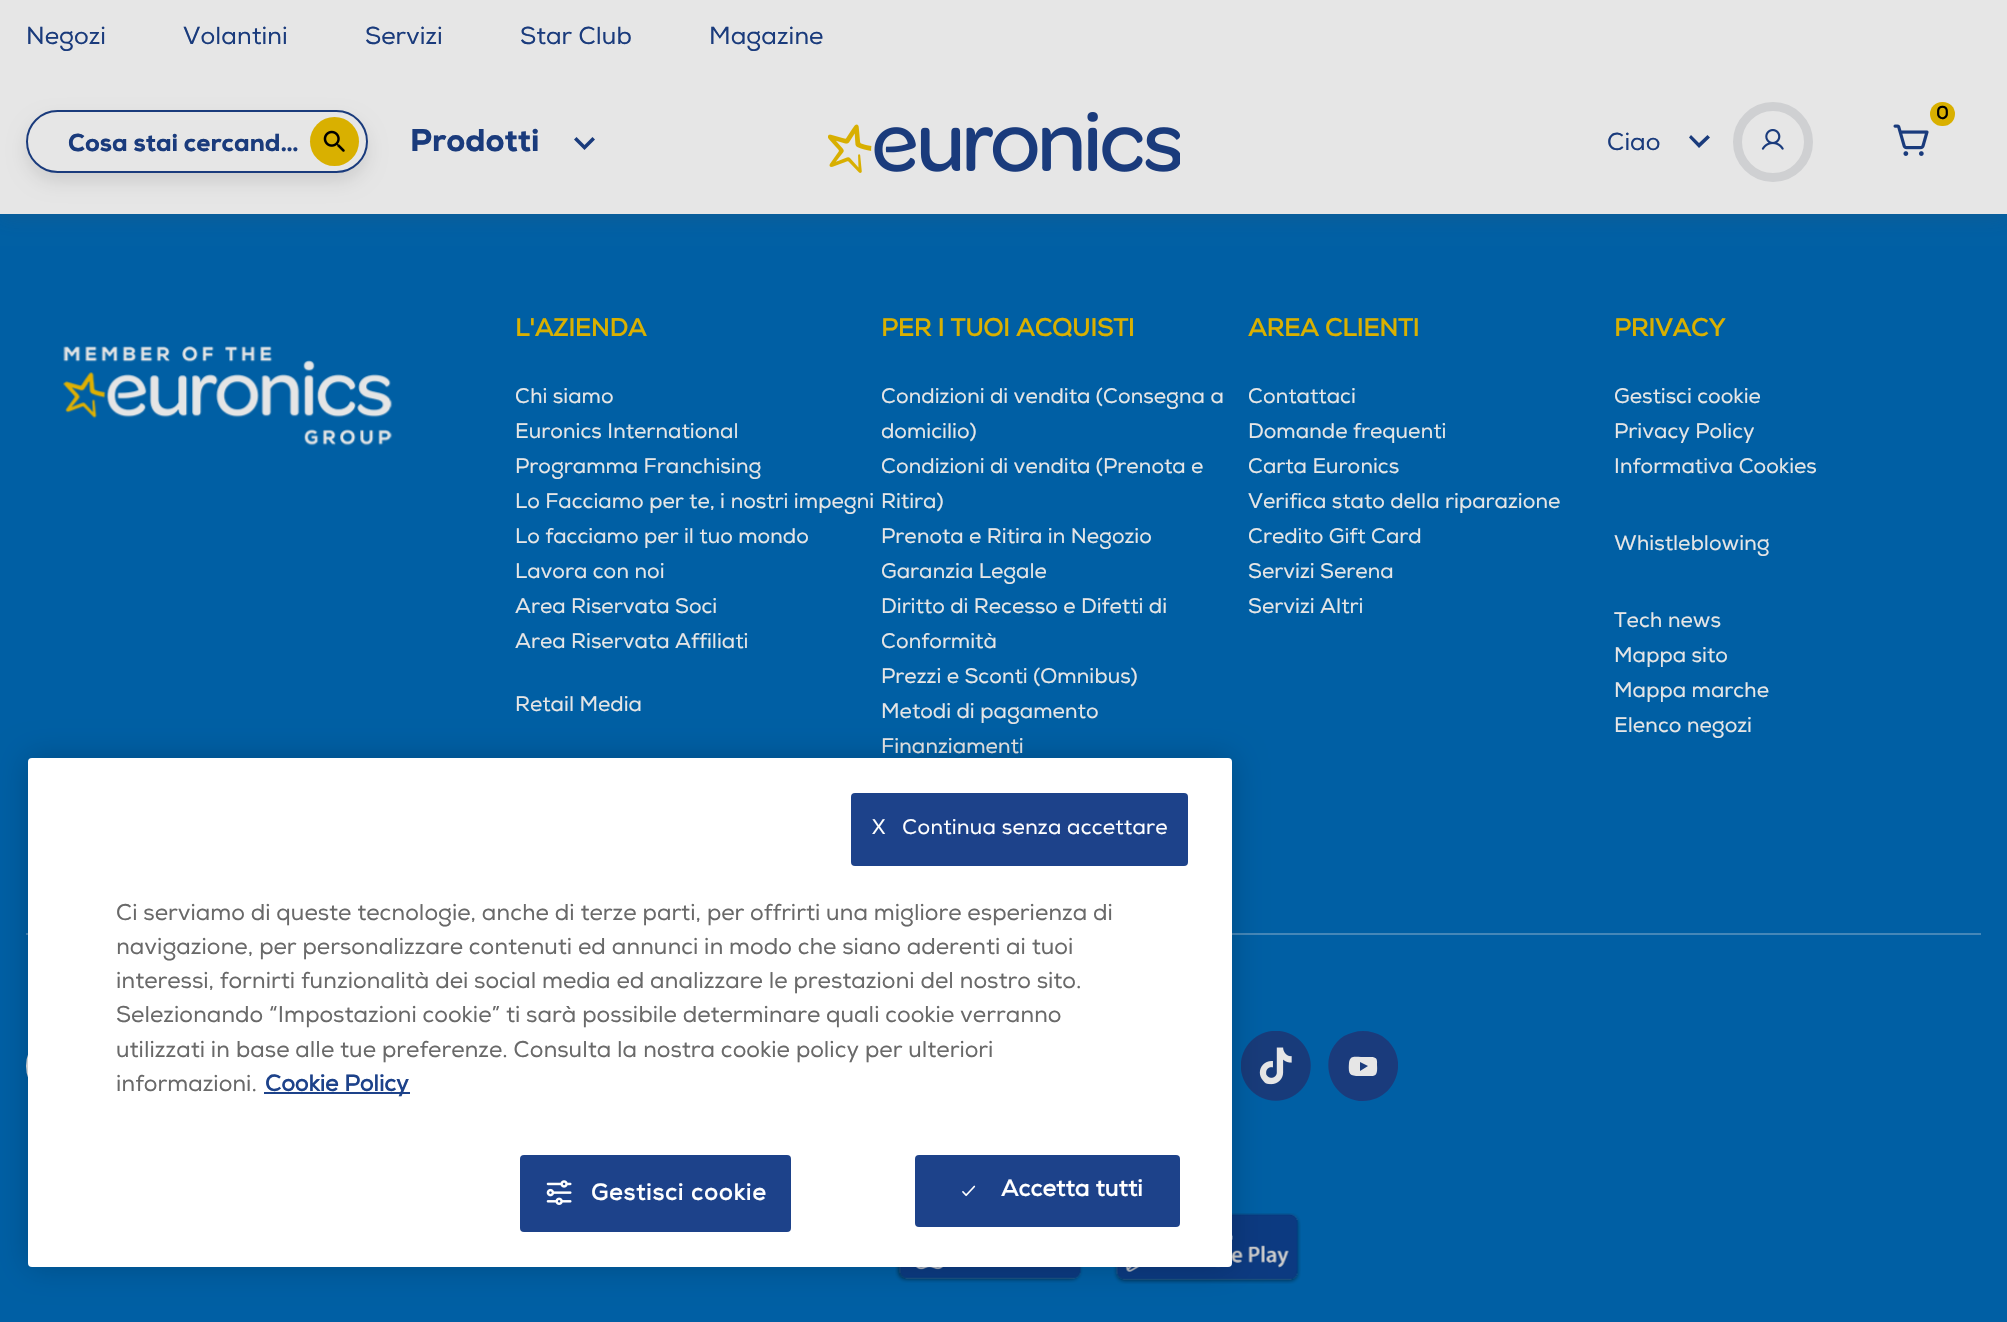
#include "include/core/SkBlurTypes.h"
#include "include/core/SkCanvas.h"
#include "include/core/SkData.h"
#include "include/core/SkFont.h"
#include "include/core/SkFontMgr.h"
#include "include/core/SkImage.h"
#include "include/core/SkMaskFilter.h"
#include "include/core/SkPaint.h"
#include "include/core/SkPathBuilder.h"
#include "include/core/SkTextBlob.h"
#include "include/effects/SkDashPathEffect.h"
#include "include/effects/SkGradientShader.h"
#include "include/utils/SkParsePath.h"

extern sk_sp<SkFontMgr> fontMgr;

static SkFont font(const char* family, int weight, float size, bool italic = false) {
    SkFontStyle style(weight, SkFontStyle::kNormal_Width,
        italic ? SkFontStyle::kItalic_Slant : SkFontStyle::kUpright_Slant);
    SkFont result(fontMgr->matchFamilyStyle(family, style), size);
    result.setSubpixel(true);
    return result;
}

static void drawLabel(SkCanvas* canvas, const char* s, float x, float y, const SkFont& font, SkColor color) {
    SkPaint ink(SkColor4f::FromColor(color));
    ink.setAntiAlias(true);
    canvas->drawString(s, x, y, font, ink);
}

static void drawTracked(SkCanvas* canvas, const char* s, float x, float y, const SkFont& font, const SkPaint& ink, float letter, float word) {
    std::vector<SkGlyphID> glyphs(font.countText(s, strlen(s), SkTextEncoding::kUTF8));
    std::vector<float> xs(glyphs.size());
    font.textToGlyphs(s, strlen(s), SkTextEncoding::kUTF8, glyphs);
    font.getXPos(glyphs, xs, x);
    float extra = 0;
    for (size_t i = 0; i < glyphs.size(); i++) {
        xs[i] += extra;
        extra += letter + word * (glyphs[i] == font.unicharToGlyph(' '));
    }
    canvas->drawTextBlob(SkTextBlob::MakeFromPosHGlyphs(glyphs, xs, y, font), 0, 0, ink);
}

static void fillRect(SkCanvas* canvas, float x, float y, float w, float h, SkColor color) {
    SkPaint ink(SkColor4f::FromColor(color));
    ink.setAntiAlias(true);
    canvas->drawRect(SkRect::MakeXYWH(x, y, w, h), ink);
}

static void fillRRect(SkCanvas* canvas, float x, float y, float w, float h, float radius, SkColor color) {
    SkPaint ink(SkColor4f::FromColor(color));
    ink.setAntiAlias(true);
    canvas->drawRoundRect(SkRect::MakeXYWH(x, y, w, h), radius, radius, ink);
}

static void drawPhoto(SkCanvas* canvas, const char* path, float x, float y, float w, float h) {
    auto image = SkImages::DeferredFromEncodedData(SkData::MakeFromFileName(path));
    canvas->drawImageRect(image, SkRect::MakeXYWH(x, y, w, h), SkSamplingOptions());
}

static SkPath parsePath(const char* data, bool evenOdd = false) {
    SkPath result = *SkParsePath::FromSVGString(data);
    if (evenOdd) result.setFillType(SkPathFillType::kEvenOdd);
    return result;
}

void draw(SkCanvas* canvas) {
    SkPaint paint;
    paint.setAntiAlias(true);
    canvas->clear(0xFF005FA4);
    paint.setColor(0x294D4E4F);
    paint.setMaskFilter(SkMaskFilter::MakeBlur(kNormal_SkBlurStyle, 9));
    canvas->drawRect(SkRect::MakeXYWH(0, 75, 2007, 144), paint);
    paint.setMaskFilter(nullptr);
    fillRect(canvas, 0, 0, 2007, 214, 0xFFE6E6E6);
    SkFont font1 = font("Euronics", 400, 24.5f);
    drawLabel(canvas, "Negozi", 26, 44, font1, 0xFF1A3B7C);
    drawLabel(canvas, "Volantini", 183, 44, font1, 0xFF1A3B7C);
    drawLabel(canvas, "Servizi", 365, 44, font1, 0xFF1A3B7C);
    drawLabel(canvas, "Star Club", 520, 44, font1, 0xFF1A3B7C);
    drawLabel(canvas, "Magazine", 709, 44, font1, 0xFF1A3B7C);
    canvas->save();
    canvas->clipPath(parsePath("M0 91H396V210H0ZM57.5 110H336.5C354 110 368 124 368 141.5C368 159 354 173 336.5 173H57.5C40 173 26 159 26 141.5C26 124 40 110 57.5 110Z", true), true);
    paint.setColor(0x1A000000);
    paint.setMaskFilter(SkMaskFilter::MakeBlur(kNormal_SkBlurStyle, 9));
    canvas->drawRoundRect(SkRect::MakeXYWH(26, 119, 342, 63), 31.5f, 31.5f, paint);
    paint.setMaskFilter(nullptr);
    canvas->restore();
    paint.setStroke(true);
    paint.setStrokeWidth(2);
    paint.setColor(0xFF1A3B7C);
    canvas->drawRoundRect(SkRect::MakeXYWH(27, 111, 340, 61), 30.5f, 30.5f, paint);
    SkFont font2 = font("Euronics", 900, 24.5f);
    drawLabel(canvas, "Cosa stai cercand…", 68, 151, font2, 0xFF1A3B7C);
    paint.setStroke(false);
    paint.setColor(0xFFD9B000);
    canvas->drawCircle(334.5f, 141.5f, 24.5f, paint);
    drawPhoto(canvas, "assets/img1.png", 323, 130, 22, 22);
    SkFont font3 = font("Euronics", 900, 31.5f);
    drawLabel(canvas, "Prodotti", 410, 151, font3, 0xFF1A3B7C);
    paint.setColor(0xFF1A3B7C);
    canvas->drawPath(parsePath("M576.5 137L584.5 145L592.5 137L595 139.5L584.5 150L574 139.5Z"), paint);
    drawPhoto(canvas, "assets/img2.png", 828, 112, 352, 61);
    fillRRect(canvas, 1930, 102, 25, 24, 12, 0xFFD9B000);
    SkFont font4 = font("Euronics", 700, 18);
    drawLabel(canvas, "0", 1936, 119, font4, 0xFF000000);
    drawPhoto(canvas, "assets/img3.png", 1893, 124, 36, 32);
    drawLabel(canvas, "Ciao", 1607, 150, font1, 0xFF1A3B7C);
    canvas->drawPath(parsePath("M1691 135L1699 143L1707.5 135L1710 137.5L1699 148L1689 137.5Z"), paint);
    paint.setStroke(true);
    paint.setStrokeWidth(9);
    paint.setColor(0xFFCFD0D2);
    canvas->drawCircle(1773, 142, 35.5f, paint);
    drawPhoto(canvas, "assets/img4.png", 1761, 129, 23, 21);
    drawPhoto(canvas, "assets/img5.png", 63, 346, 330, 100);
    SkFont font5 = font("Euronics", 700, 24.5f);
    drawLabel(canvas, "L'AZIENDA", 515, 336, font5, 0xFFD9B000);
    SkFont font6 = font("Euronics", 400, 21);
    drawLabel(canvas, "Chi siamo", 515, 403, font6, 0xFFE6E6E6);
    drawLabel(canvas, "Euronics International", 515, 438, font6, 0xFFE6E6E6);
    drawLabel(canvas, "Programma Franchising", 515, 473, font6, 0xFFE6E6E6);
    drawLabel(canvas, "Lo Facciamo per te, i nostri impegni", 515, 508, font6, 0xFFE6E6E6);
    drawLabel(canvas, "Lo facciamo per il tuo mondo", 515, 543, font6, 0xFFE6E6E6);
    drawLabel(canvas, "Lavora con noi", 515, 578, font6, 0xFFE6E6E6);
    drawLabel(canvas, "Area Riservata Soci", 515, 613, font6, 0xFFE6E6E6);
    drawLabel(canvas, "Area Riservata Affiliati", 515, 648, font6, 0xFFE6E6E6);
    drawLabel(canvas, "Retail Media", 515, 711, font6, 0xFFE6E6E6);
    drawLabel(canvas, "PER I TUOI ACQUISTI", 881, 336, font5, 0xFFD9B000);
    drawLabel(canvas, "Condizioni di vendita (Consegna a", 881, 403, font6, 0xFFE6E6E6);
    drawLabel(canvas, "domicilio)", 881, 438, font6, 0xFFE6E6E6);
    drawLabel(canvas, "Condizioni di vendita (Prenota e", 881, 473, font6, 0xFFE6E6E6);
    drawLabel(canvas, "Ritira)", 881, 508, font6, 0xFFE6E6E6);
    drawLabel(canvas, "Prenota e Ritira in Negozio", 881, 543, font6, 0xFFE6E6E6);
    drawLabel(canvas, "Garanzia Legale", 881, 578, font6, 0xFFE6E6E6);
    drawLabel(canvas, "Diritto di Recesso e Difetti di", 881, 613, font6, 0xFFE6E6E6);
    drawLabel(canvas, "Conformità", 881, 648, font6, 0xFFE6E6E6);
    drawLabel(canvas, "Prezzi e Sconti (Omnibus)", 881, 683, font6, 0xFFE6E6E6);
    drawLabel(canvas, "Metodi di pagamento", 881, 718, font6, 0xFFE6E6E6);
    drawLabel(canvas, "Finanziamenti", 881, 753, font6, 0xFFE6E6E6);
    drawLabel(canvas, "AREA CLIENTI", 1248, 336, font5, 0xFFD9B000);
    drawLabel(canvas, "Contattaci", 1248, 403, font6, 0xFFE6E6E6);
    drawLabel(canvas, "Domande frequenti", 1248, 438, font6, 0xFFE6E6E6);
    drawLabel(canvas, "Carta Euronics", 1248, 473, font6, 0xFFE6E6E6);
    drawLabel(canvas, "Verifica stato della riparazione", 1248, 508, font6, 0xFFE6E6E6);
    drawLabel(canvas, "Credito Gift Card", 1248, 543, font6, 0xFFE6E6E6);
    drawLabel(canvas, "Servizi Serena", 1248, 578, font6, 0xFFE6E6E6);
    drawLabel(canvas, "Servizi Altri", 1248, 613, font6, 0xFFE6E6E6);
    drawLabel(canvas, "PRIVACY", 1614, 336, font5, 0xFFD9B000);
    drawLabel(canvas, "Gestisci cookie", 1614, 403, font6, 0xFFE6E6E6);
    drawLabel(canvas, "Privacy Policy", 1614, 438, font6, 0xFFE6E6E6);
    drawLabel(canvas, "Informativa Cookies", 1614, 473, font6, 0xFFE6E6E6);
    drawLabel(canvas, "Whistleblowing", 1614, 550, font6, 0xFFE6E6E6);
    drawLabel(canvas, "Tech news", 1614, 627, font6, 0xFFE6E6E6);
    drawLabel(canvas, "Mappa sito", 1614, 662, font6, 0xFFE6E6E6);
    drawLabel(canvas, "Mappa marche", 1614, 697, font6, 0xFFE6E6E6);
    drawLabel(canvas, "Elenco negozi", 1614, 732, font6, 0xFFE6E6E6);
    fillRect(canvas, 26, 933, 2, 2, 0xFF4587B8);
    fillRRect(canvas, 26, 1031, 842, 70, 35, 0xFFE6E6E6);
    fillRect(canvas, 1232, 933, 749, 2, 0xFF4587B8);
    paint.setStroke(false);
    paint.setColor(0xFFE6E6E6);
    canvas->drawCircle(1275.5f, 1065.5f, 31.5f, paint);
    drawPhoto(canvas, "assets/img6.png", 1241, 1031, 70, 70);
    canvas->drawCircle(1363.5f, 1065.5f, 31.5f, paint);
    canvas->save();
    canvas->clipRect(SkRect::MakeXYWH(1328, 1031, 70, 70));
    paint.setColor(0xFF1A3B7C);
    canvas->drawPath(parsePath("M1363 1101C1329 1101 1315 1055 1344 1036C1350 1033 1356 1031 1363 1031C1370 1031 1377 1033 1382 1036C1412 1056 1397 1101 1363 1101ZM1361 1057C1355 1057 1350 1055 1349 1063C1348 1076 1350 1076 1363 1076C1374 1076 1378 1078 1377 1065C1377 1061 1378 1057 1371 1057H1363ZM1360 1071V1062L1368 1066Z"), paint);
    canvas->restore();
    drawPhoto(canvas, "assets/img7.png", 895, 1267, 188, 16);
    drawPhoto(canvas, "assets/img8.png", 1113, 1213, 188, 71);
    paint.setColor(0x33000000);
    paint.setMaskFilter(SkMaskFilter::MakeBlur(kNormal_SkBlurStyle, 16));
    canvas->drawRoundRect(SkRect::MakeXYWH(28, 758, 1204, 509), 4, 4, paint);
    paint.setMaskFilter(nullptr);
    fillRRect(canvas, 28, 758, 1204, 509, 4, 0xFFFFFFFF);
    fillRRect(canvas, 851, 793, 337, 73, 4, 0xFF1D428A);
    paint.setColor(0xFFFFFFFF);
    drawTracked(canvas, "X   Continua senza accettare", 872, 834, font6, paint, 0.2f, 0);
    SkFont font7 = font("Euronics", 400, 22.75f);
    drawLabel(canvas, "Ci serviamo di queste tecnologie, anche di terze parti, per offrirti una migliore esperienza di", 116, 920, font7, 0xFF696969);
    drawLabel(canvas, "navigazione, per personalizzare contenuti ed annunci in modo che siano aderenti ai tuoi", 116, 954, font7, 0xFF696969);
    drawLabel(canvas, "interessi, fornirti funzionalità dei social media ed analizzare le prestazioni del nostro sito.", 116, 988, font7, 0xFF696969);
    drawLabel(canvas, "Selezionando “Impostazioni cookie” ti sarà possibile determinare quali cookie verranno", 116, 1022, font7, 0xFF696969);
    drawLabel(canvas, "utilizzati in base alle tue preferenze. Consulta la nostra cookie policy per ulteriori", 116, 1057, font7, 0xFF696969);
    drawLabel(canvas, "informazioni.", 116, 1091, font7, 0xFF696969);
    fillRect(canvas, 264, 1092, 146, 2, 0xFF1D428A);
    SkFont font8 = font("Euronics", 700, 22.75f);
    drawLabel(canvas, "Cookie Policy", 265, 1091, font8, 0xFF1D428A);
    fillRRect(canvas, 520, 1155, 271, 77, 4, 0xFF1D428A);
    drawPhoto(canvas, "assets/img9.png", 546, 1180, 26, 25);
    drawTracked(canvas, "Gestisci cookie", 591, 1200, font8, paint, 1.1f, 0);
    fillRRect(canvas, 915, 1155, 265, 72, 4, 0xFF1D428A);
    drawPhoto(canvas, "assets/img10.png", 962, 1185, 14, 12);
    drawTracked(canvas, "Accetta tutti", 1001, 1196, font8, paint, 0.25f, 0);
}
